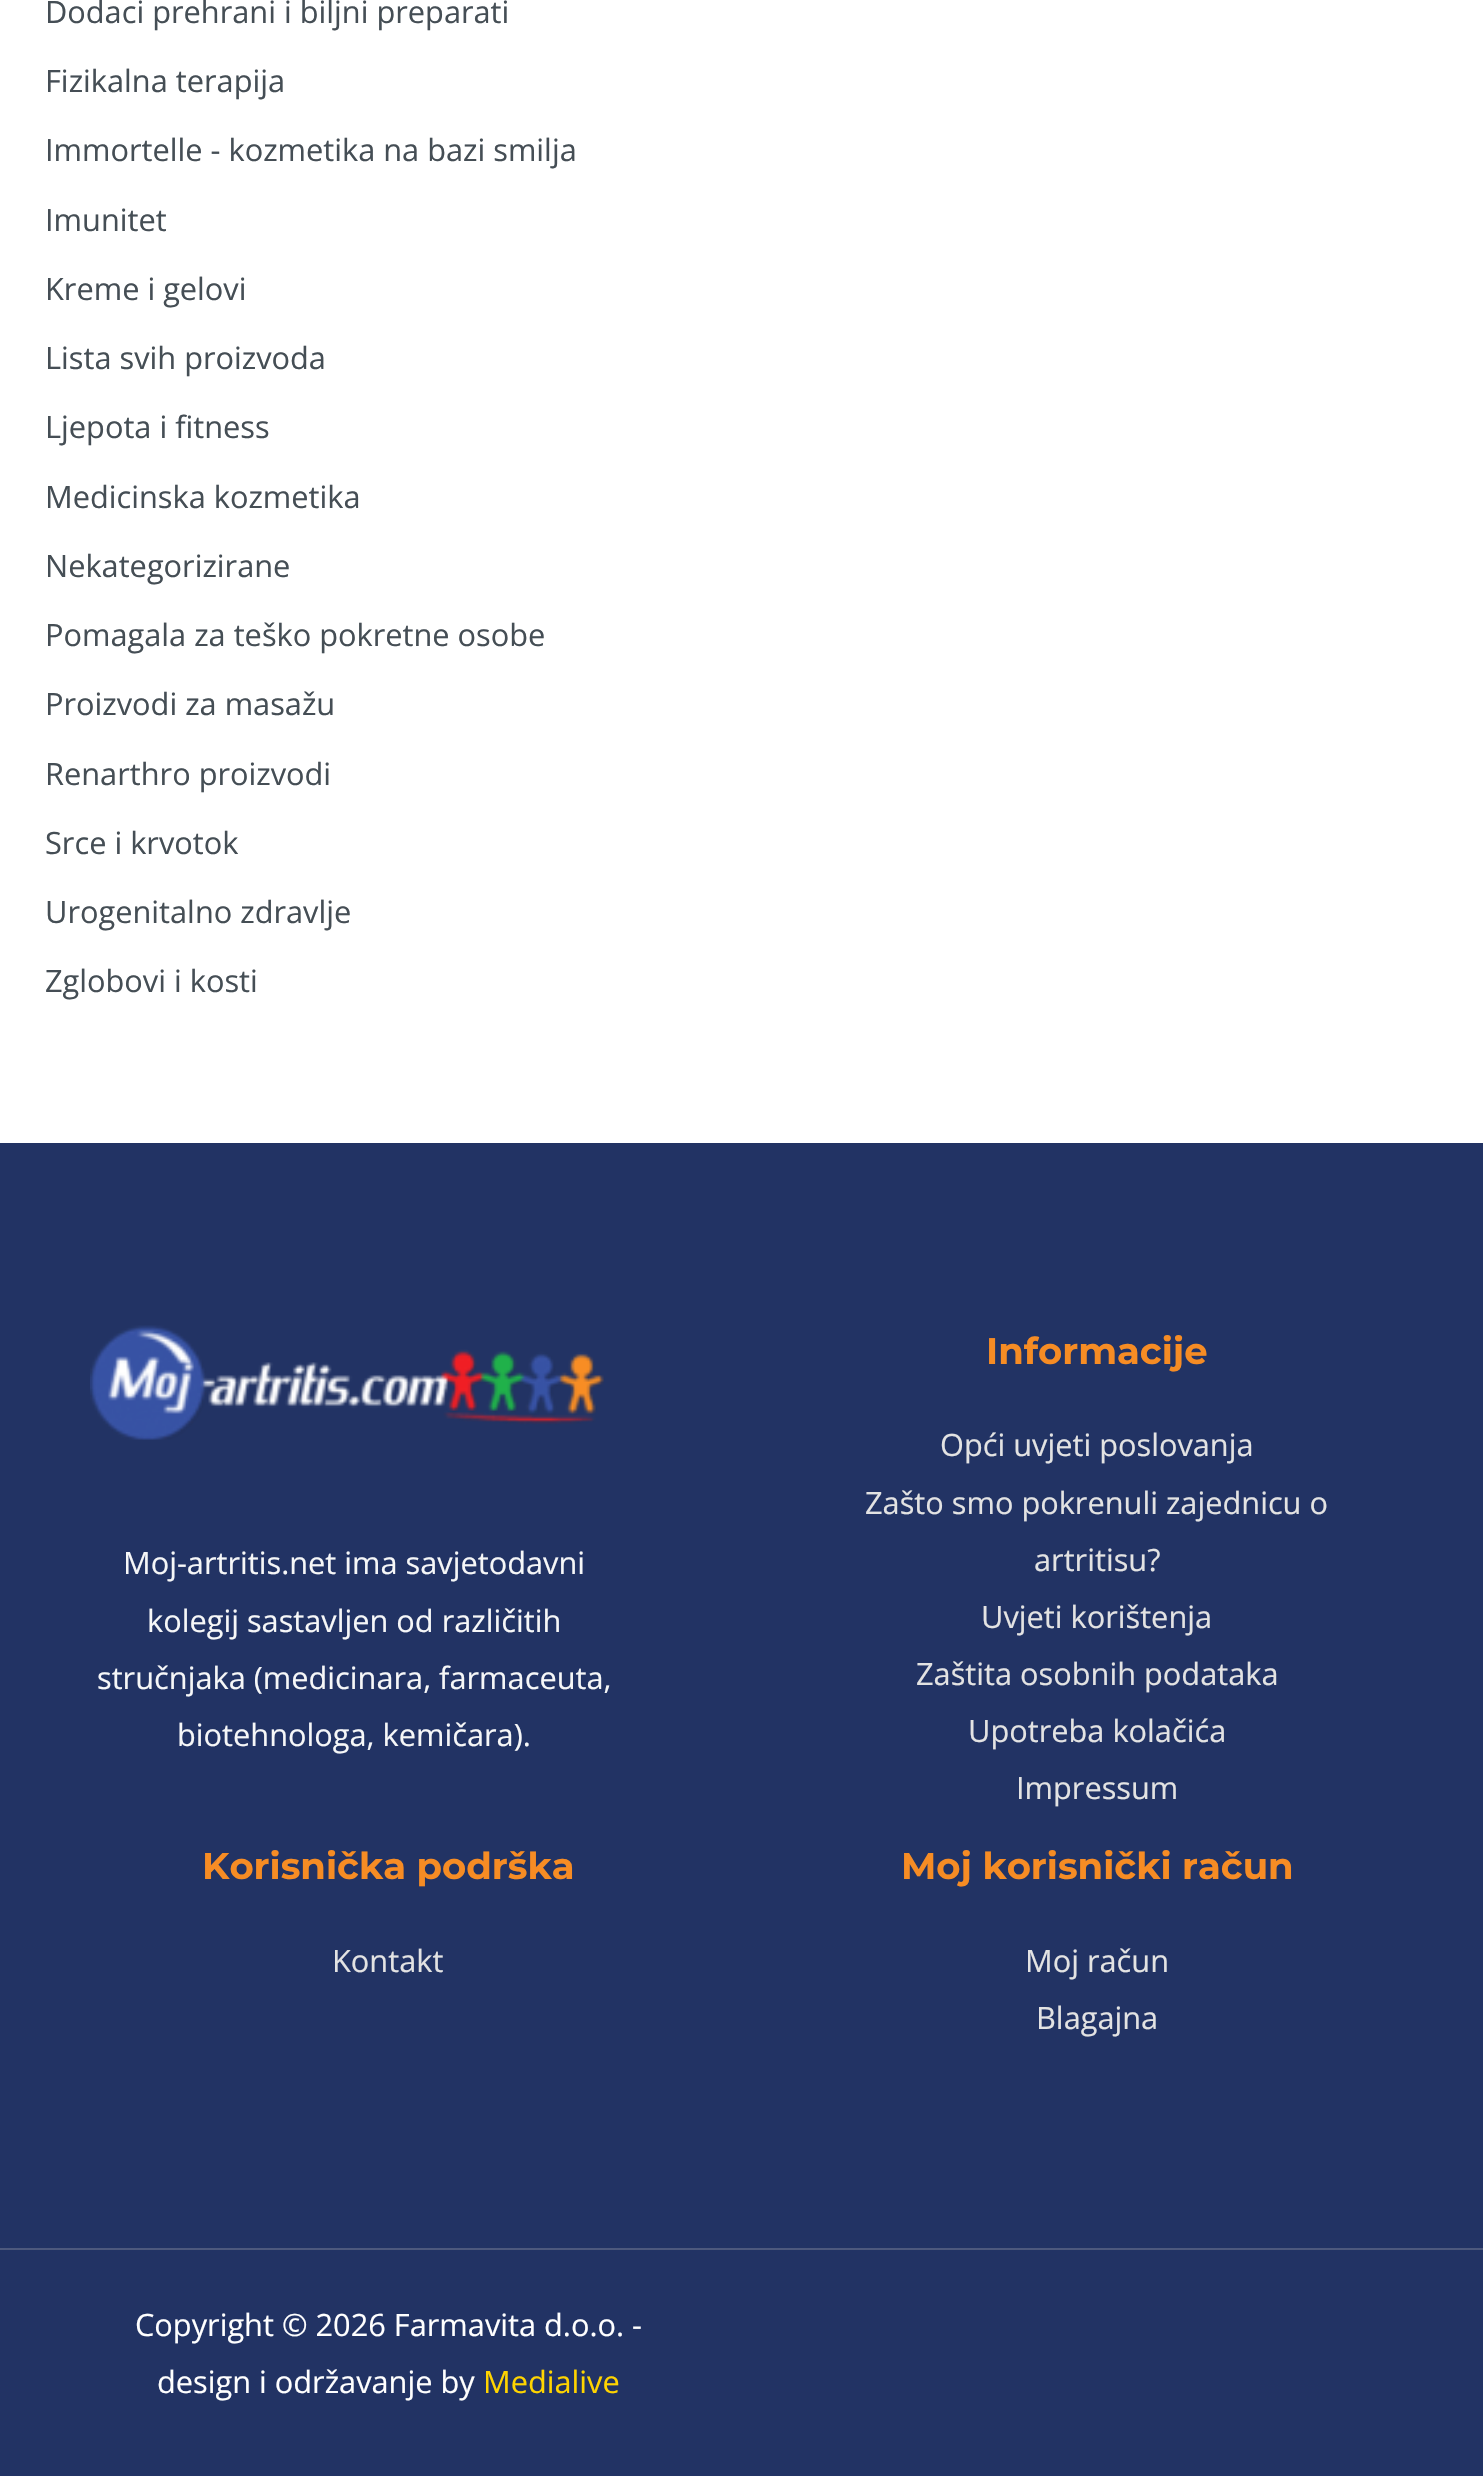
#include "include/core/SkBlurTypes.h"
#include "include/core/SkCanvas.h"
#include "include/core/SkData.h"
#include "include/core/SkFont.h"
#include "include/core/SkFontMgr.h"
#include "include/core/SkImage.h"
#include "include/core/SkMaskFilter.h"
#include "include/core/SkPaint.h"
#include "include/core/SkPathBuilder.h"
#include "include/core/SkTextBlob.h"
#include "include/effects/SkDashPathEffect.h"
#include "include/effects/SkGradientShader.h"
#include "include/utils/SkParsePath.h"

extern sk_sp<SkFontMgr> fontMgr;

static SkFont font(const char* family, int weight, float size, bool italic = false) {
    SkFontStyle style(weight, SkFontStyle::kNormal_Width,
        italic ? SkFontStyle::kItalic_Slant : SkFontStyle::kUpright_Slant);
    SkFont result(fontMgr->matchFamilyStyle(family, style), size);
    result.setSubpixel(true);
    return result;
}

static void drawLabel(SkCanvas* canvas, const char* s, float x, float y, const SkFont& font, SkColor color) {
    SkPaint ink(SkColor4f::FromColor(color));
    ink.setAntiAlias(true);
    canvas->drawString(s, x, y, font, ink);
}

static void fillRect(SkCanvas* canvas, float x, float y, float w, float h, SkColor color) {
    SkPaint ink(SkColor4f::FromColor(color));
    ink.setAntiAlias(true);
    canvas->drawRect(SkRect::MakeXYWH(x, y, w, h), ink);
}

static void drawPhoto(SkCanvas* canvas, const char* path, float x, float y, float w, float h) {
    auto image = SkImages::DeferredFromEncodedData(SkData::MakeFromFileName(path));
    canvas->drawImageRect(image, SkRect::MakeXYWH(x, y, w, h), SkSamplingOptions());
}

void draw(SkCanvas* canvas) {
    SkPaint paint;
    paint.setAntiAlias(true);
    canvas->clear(0xFFFFFFFF);
    SkFont font1 = font("Open Sans", 400, 30.75f);
    drawLabel(canvas, "Dodaci prehrani i biljni preparati", 45, 23, font1, 0xFF454E55);
    drawLabel(canvas, "Fizikalna terapija", 45, 92, font1, 0xFF454E55);
    drawLabel(canvas, "Immortelle - kozmetika na bazi smilja", 45, 161, font1, 0xFF454E55);
    drawLabel(canvas, "Imunitet", 45, 231, font1, 0xFF454E55);
    drawLabel(canvas, "Kreme i gelovi", 45, 300, font1, 0xFF454E55);
    drawLabel(canvas, "Lista svih proizvoda", 45, 369, font1, 0xFF454E55);
    drawLabel(canvas, "Ljepota i fitness", 45, 438, font1, 0xFF454E55);
    drawLabel(canvas, "Medicinska kozmetika", 45, 508, font1, 0xFF454E55);
    drawLabel(canvas, "Nekategorizirane", 45, 577, font1, 0xFF454E55);
    drawLabel(canvas, "Pomagala za teško pokretne osobe", 45, 646, font1, 0xFF454E55);
    drawLabel(canvas, "Proizvodi za masažu", 45, 715, font1, 0xFF454E55);
    drawLabel(canvas, "Renarthro proizvodi", 45, 785, font1, 0xFF454E55);
    drawLabel(canvas, "Srce i krvotok", 45, 854, font1, 0xFF454E55);
    drawLabel(canvas, "Urogenitalno zdravlje", 45, 923, font1, 0xFF454E55);
    drawLabel(canvas, "Zglobovi i kosti", 45, 992, font1, 0xFF454E55);
    fillRect(canvas, 0, 1143, 1483, 1333, 0xFF223364);
    drawPhoto(canvas, "assets/img1.png", 90, 1325, 514, 115);
    drawLabel(canvas, "Moj-artritis.net ima savjetodavni", 123, 1574, font1, 0xFFF6F7F8);
    drawLabel(canvas, "kolegij sastavljen od različitih", 147, 1632, font1, 0xFFF6F7F8);
    drawLabel(canvas, "stručnjaka (medicinara, farmaceuta,", 97, 1689, font1, 0xFFF6F7F8);
    drawLabel(canvas, "biotehnologa, kemičara).", 177, 1746, font1, 0xFFF6F7F8);
    SkFont font2 = font("Montserrat", 100, 37);
    drawLabel(canvas, "Informacije", 986, 1364, font2, 0xFFF68C24);
    drawLabel(canvas, "Opći uvjeti poslovanja", 940, 1456, font1, 0xFFE3E3E3);
    drawLabel(canvas, "Zašto smo pokrenuli zajednicu o", 865, 1514, font1, 0xFFE3E3E3);
    drawLabel(canvas, "artritisu?", 1034, 1571, font1, 0xFFE3E3E3);
    drawLabel(canvas, "Uvjeti korištenja", 981, 1628, font1, 0xFFE3E3E3);
    drawLabel(canvas, "Zaštita osobnih podataka", 916, 1685, font1, 0xFFE3E3E3);
    drawLabel(canvas, "Upotreba kolačića", 968, 1742, font1, 0xFFE3E3E3);
    drawLabel(canvas, "Impressum", 1016, 1799, font1, 0xFFE3E3E3);
    drawLabel(canvas, "Korisnička podrška", 202, 1879, font2, 0xFFF68C24);
    drawLabel(canvas, "Kontakt", 332, 1972, font1, 0xFFE3E3E3);
    drawLabel(canvas, "Moj korisnički račun", 901, 1879, font2, 0xFFF68C24);
    drawLabel(canvas, "Moj račun", 1025, 1972, font1, 0xFFE3E3E3);
    drawLabel(canvas, "Blagajna", 1036, 2029, font1, 0xFFE3E3E3);
    fillRect(canvas, 0, 2248, 1483, 2, 0xFF4D597D);
    drawLabel(canvas, "Copyright © 2026 Farmavita d.o.o. -", 135, 2336, font1, 0xFFFFFFFF);
    drawLabel(canvas, "design i održavanje by", 157, 2393, font1, 0xFFFFFFFF);
    drawLabel(canvas, "Medialive", 483, 2393, font1, 0xFFFFD400);
}
